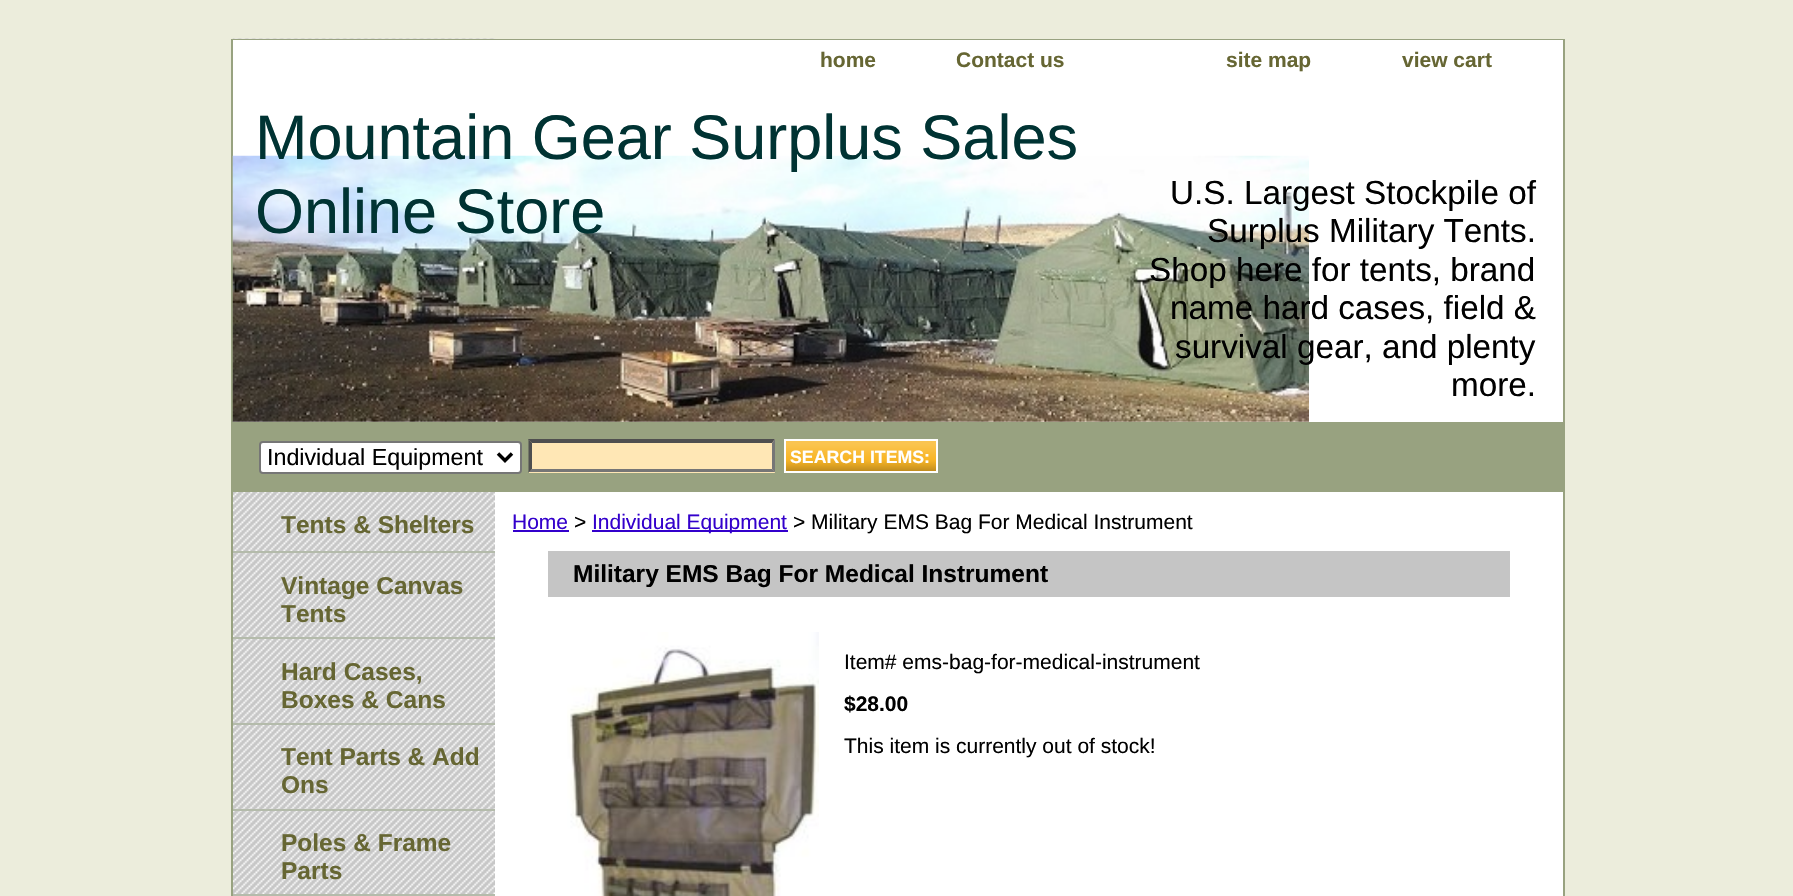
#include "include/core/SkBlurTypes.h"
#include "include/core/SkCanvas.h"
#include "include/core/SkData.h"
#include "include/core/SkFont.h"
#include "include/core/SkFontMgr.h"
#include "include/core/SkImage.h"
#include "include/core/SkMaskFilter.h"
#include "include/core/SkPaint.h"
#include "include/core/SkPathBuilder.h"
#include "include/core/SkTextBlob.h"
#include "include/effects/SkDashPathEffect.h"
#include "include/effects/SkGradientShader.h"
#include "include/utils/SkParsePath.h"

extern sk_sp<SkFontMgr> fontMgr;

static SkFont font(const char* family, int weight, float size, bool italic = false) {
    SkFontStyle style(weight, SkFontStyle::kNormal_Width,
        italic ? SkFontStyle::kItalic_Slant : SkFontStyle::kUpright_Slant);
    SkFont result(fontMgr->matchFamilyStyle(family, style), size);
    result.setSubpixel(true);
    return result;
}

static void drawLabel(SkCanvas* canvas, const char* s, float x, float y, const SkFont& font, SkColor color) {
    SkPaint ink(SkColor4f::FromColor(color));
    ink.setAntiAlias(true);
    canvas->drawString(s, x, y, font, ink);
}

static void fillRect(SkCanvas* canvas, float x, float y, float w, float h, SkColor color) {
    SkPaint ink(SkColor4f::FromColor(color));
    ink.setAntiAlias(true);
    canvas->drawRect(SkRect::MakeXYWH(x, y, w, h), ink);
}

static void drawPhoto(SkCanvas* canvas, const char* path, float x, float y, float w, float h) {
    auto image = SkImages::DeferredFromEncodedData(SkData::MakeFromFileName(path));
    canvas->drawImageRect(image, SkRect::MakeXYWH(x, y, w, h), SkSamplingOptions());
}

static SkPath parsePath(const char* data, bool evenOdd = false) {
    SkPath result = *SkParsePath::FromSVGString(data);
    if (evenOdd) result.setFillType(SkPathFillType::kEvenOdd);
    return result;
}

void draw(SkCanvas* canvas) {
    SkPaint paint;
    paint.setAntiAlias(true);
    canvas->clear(0xFFECEDDC);
    drawPhoto(canvas, "assets/img1.png", 232, 38, 264, 856);
    paint.setStroke(true);
    paint.setStrokeWidth(2);
    paint.setColor(0xFF98A280);
    canvas->drawRect(SkRect::MakeXYWH(232, 40, 1332, 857), paint);
    fillRect(canvas, 233, 40, 1330, 382, 0xFFFFFFFF);
    drawPhoto(canvas, "assets/img2.png", 232, 155, 1077, 267);
    SkFont font1 = font("Liberation Sans", 700, 21);
    drawLabel(canvas, "home", 820, 67, font1, 0xFF666633);
    drawLabel(canvas, "Contact us", 956, 67, font1, 0xFF666633);
    drawLabel(canvas, "site map", 1226, 67, font1, 0xFF666633);
    drawLabel(canvas, "view cart", 1402, 67, font1, 0xFF666633);
    SkFont font2 = font("Liberation Sans", 400, 63);
    drawLabel(canvas, "Mountain Gear Surplus Sales", 255, 159, font2, 0xFF003333);
    drawLabel(canvas, "Online Store", 255, 233, font2, 0xFF003333);
    SkFont font3 = font("Liberation Sans", 400, 33.25f);
    drawLabel(canvas, "U.S. Largest Stockpile of", 1170, 204, font3, 0xFF000000);
    drawLabel(canvas, "Surplus Military Tents.", 1207, 242, font3, 0xFF000000);
    drawLabel(canvas, "Shop here for tents, brand", 1149, 281, font3, 0xFF000000);
    drawLabel(canvas, "name hard cases, field &", 1170, 319, font3, 0xFF000000);
    drawLabel(canvas, "survival gear, and plenty", 1175, 358, font3, 0xFF000000);
    drawLabel(canvas, "more.", 1451, 396, font3, 0xFF000000);
    fillRect(canvas, 233, 422, 1330, 70, 0xFF98A280);
    paint.setStroke(false);
    paint.setColor(0xFFFFFFFF);
    canvas->drawRoundRect(SkRect::MakeXYWH(260, 442, 261, 31), 3, 3, paint);
    paint.setStroke(true);
    paint.setColor(0xFF767676);
    canvas->drawRoundRect(SkRect::MakeXYWH(260, 442, 261, 31), 3, 3, paint);
    paint.setStrokeWidth(3.5f);
    paint.setColor(0xFF000000);
    canvas->drawPath(parsePath("M498 453.5L505 460.5L512 453.5"), paint);
    SkFont font4 = font("Liberation Sans", 400, 23.25f);
    drawLabel(canvas, "Individual Equipment", 267, 465, font4, 0xFF000000);
    fillRect(canvas, 529, 439, 246, 34, 0xFFFFE7B5);
    paint.setStroke(false);
    paint.setColor(0xFF4F4F4F);
    canvas->drawPath(parsePath("M528 439H775L772 443H532Z"), paint);
    paint.setColor(0xFF767676);
    canvas->drawPath(parsePath("M775 439V472.5L772 469V443Z"), paint);
    canvas->drawPath(parsePath("M775 472H528L532 469H772Z"), paint);
    paint.setColor(0xFF4F4F4F);
    canvas->drawPath(parsePath("M528.5 472.5V439L532 443V469Z"), paint);
    drawPhoto(canvas, "assets/img3.png", 786, 441, 150, 30);
    paint.setStroke(true);
    paint.setStrokeWidth(2);
    paint.setColor(0xFFFFFFFF);
    canvas->drawRect(SkRect::MakeXYWH(785, 440, 152, 32), paint);
    SkFont font5 = font("Liberation Sans", 700, 17.75f);
    drawLabel(canvas, "SEARCH ITEMS:", 790, 463, font5, 0xFFFFFFFF);
    fillRect(canvas, 233, 551, 262, 2, 0xFFB4BBAB);
    SkFont font6 = font("Liberation Sans", 700, 24.5f);
    drawLabel(canvas, "Tents & Shelters", 281, 533, font6, 0xFF666633);
    fillRect(canvas, 233, 637, 262, 2, 0xFFB4BBAB);
    drawLabel(canvas, "Vintage Canvas", 281, 594, font6, 0xFF666633);
    drawLabel(canvas, "Tents", 281, 622, font6, 0xFF666633);
    fillRect(canvas, 233, 723, 262, 2, 0xFFB4BBAB);
    drawLabel(canvas, "Hard Cases,", 281, 680, font6, 0xFF666633);
    drawLabel(canvas, "Boxes & Cans", 281, 708, font6, 0xFF666633);
    fillRect(canvas, 233, 809, 262, 2, 0xFFB4BBAB);
    drawLabel(canvas, "Tent Parts & Add", 281, 765, font6, 0xFF666633);
    drawLabel(canvas, "Ons", 281, 793, font6, 0xFF666633);
    fillRect(canvas, 233, 894, 262, 2, 0xFFB4BBAB);
    drawLabel(canvas, "Poles & Frame", 281, 851, font6, 0xFF666633);
    drawLabel(canvas, "Parts", 281, 879, font6, 0xFF666633);
    fillRect(canvas, 495, 492, 1068, 404, 0xFFFFFFFF);
    SkFont font7 = font("Liberation Sans", 400, 21);
    drawLabel(canvas, "Home", 512, 529, font7, 0xFF3300CC);
    fillRect(canvas, 513, 530, 56, 2, 0xFF3300CC);
    drawLabel(canvas, ">", 574, 529, font7, 0xFF000000);
    fillRect(canvas, 592, 530, 196, 2, 0xFF3300CC);
    drawLabel(canvas, "Individual Equipment", 592, 529, font7, 0xFF3300CC);
    drawLabel(canvas, "> Military EMS Bag For Medical Instrument", 793, 529, font7, 0xFF000000);
    fillRect(canvas, 548, 551, 962, 46, 0xFFC5C5C5);
    drawLabel(canvas, "Military EMS Bag For Medical Instrument", 573, 582, font6, 0xFF000000);
    drawPhoto(canvas, "assets/img4.png", 567, 632, 252, 264);
    drawLabel(canvas, "Item# ems-bag-for-medical-instrument", 844, 669, font7, 0xFF000000);
    drawLabel(canvas, "$28.00", 844, 711, font1, 0xFF000000);
    drawLabel(canvas, "This item is currently out of stock!", 844, 753, font7, 0xFF000000);
}
